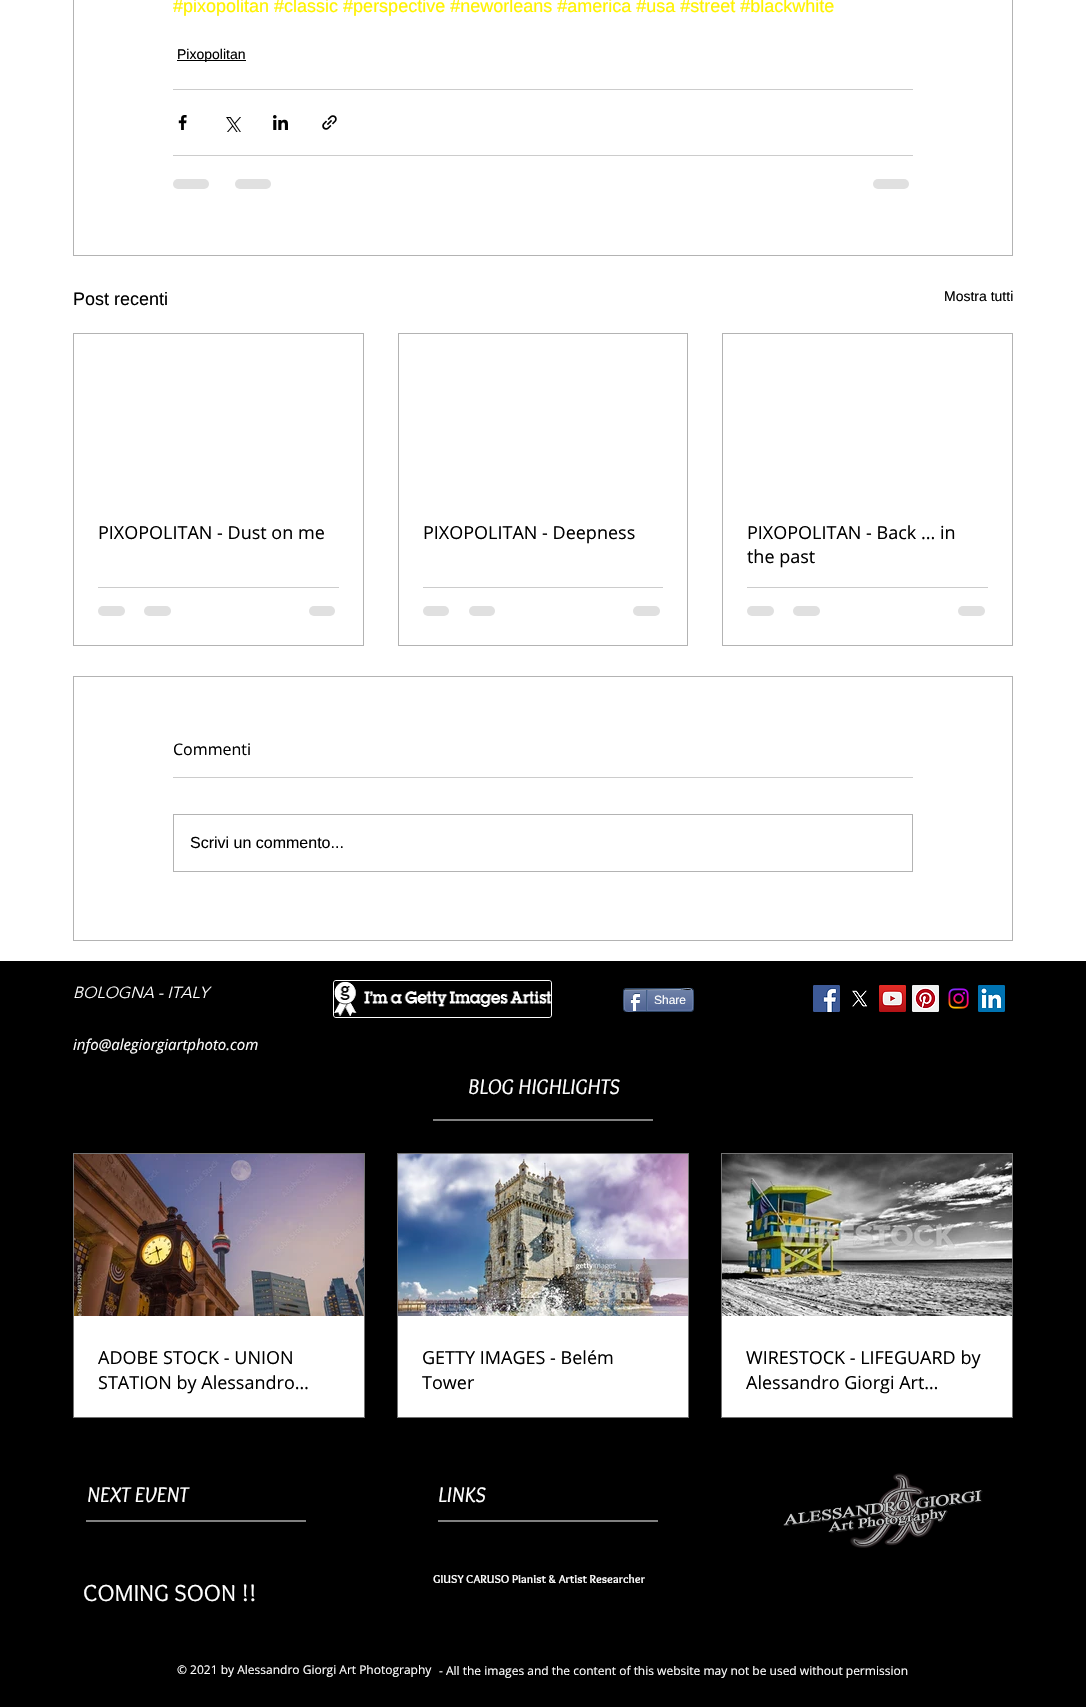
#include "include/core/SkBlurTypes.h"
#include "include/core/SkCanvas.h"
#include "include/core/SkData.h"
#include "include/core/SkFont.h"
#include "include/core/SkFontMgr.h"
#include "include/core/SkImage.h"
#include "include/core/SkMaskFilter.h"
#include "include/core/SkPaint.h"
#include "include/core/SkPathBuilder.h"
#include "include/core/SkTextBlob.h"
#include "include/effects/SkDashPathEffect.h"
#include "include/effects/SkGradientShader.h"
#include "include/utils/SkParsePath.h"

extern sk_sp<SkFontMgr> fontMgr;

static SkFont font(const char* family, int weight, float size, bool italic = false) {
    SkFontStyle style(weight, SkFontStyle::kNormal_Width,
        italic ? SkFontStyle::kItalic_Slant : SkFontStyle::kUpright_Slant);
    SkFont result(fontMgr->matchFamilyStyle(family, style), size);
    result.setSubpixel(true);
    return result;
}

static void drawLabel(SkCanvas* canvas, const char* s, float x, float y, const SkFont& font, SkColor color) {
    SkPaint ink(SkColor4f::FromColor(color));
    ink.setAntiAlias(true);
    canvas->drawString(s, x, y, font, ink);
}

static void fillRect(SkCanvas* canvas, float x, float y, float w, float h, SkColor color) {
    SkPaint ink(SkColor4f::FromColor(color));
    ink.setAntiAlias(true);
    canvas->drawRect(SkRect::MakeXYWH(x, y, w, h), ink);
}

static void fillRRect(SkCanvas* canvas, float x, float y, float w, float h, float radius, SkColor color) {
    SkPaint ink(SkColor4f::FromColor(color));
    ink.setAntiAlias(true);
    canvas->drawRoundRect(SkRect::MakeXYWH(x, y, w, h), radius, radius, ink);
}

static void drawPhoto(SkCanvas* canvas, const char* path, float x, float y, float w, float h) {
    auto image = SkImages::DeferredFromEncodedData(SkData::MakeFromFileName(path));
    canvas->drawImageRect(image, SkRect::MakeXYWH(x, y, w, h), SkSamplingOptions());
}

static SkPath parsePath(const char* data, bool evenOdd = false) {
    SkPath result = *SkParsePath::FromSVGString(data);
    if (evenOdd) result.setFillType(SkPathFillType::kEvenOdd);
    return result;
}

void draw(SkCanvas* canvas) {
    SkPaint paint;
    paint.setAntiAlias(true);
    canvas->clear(0xFFFFFFFF);
    paint.setStroke(true);
    paint.setStrokeWidth(1);
    paint.setColor(0xFFB3B3B3);
    canvas->drawRect(SkRect::MakeXYWH(73.5f, -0.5f, 939, 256), paint);
    SkFont font1 = font("Liberation Sans", 400, 18);
    drawLabel(canvas, "#pixopolitan #classic #perspective #neworleans #america #usa #street #blackwhite", 173, 12, font1, 0xFFFFF200);
    fillRect(canvas, 177, 60, 69, 1, 0xFF000000);
    SkFont font2 = font("Liberation Sans", 400, 14);
    drawLabel(canvas, "Pixopolitan", 177, 59, font2, 0xFF000000);
    fillRect(canvas, 173, 89, 740, 1, 0xFFCCCCCC);
    drawPhoto(canvas, "assets/img1.png", 178, 115, 9, 15);
    drawPhoto(canvas, "assets/img2.png", 226, 117, 15, 15);
    drawPhoto(canvas, "assets/img3.png", 273, 115, 15, 15);
    drawPhoto(canvas, "assets/img4.png", 322, 115, 15, 15);
    fillRect(canvas, 173, 155, 740, 1, 0xFFCCCCCC);
    fillRRect(canvas, 173, 179, 36, 10, 5, 0xFFE0E0E0);
    fillRRect(canvas, 235, 179, 36, 10, 5, 0xFFE0E0E0);
    fillRRect(canvas, 873, 179, 36, 10, 5, 0xFFE0E0E0);
    drawLabel(canvas, "Post recenti", 73, 305, font1, 0xFF000000);
    drawLabel(canvas, "Mostra tutti", 944, 301, font2, 0xFF000000);
    canvas->drawRect(SkRect::MakeXYWH(73.5f, 333.5f, 290, 312), paint);
    SkFont font3 = font("Open Sans", 400, 18);
    drawLabel(canvas, "PIXOPOLITAN - Dust on me", 98, 539, font3, 0xFF000000);
    fillRect(canvas, 98, 587, 241, 1, 0xFFCCCCCC);
    fillRRect(canvas, 98, 606, 27, 10, 5, 0xFFE0E0E0);
    fillRRect(canvas, 144, 606, 27, 10, 5, 0xFFE0E0E0);
    fillRRect(canvas, 309, 606, 26, 10, 5, 0xFFE0E0E0);
    canvas->drawRect(SkRect::MakeXYWH(398.5f, 333.5f, 289, 312), paint);
    drawLabel(canvas, "PIXOPOLITAN - Deepness", 423, 539, font3, 0xFF000000);
    fillRect(canvas, 423, 587, 240, 1, 0xFFCCCCCC);
    fillRRect(canvas, 423, 606, 26, 10, 5, 0xFFE0E0E0);
    fillRRect(canvas, 469, 606, 26, 10, 5, 0xFFE0E0E0);
    fillRRect(canvas, 633, 606, 27, 10, 5, 0xFFE0E0E0);
    canvas->drawRect(SkRect::MakeXYWH(722.5f, 333.5f, 290, 312), paint);
    drawLabel(canvas, "PIXOPOLITAN - Back ... in", 747, 539, font3, 0xFF000000);
    drawLabel(canvas, "the past", 747, 563, font3, 0xFF000000);
    fillRect(canvas, 747, 587, 241, 1, 0xFFCCCCCC);
    fillRRect(canvas, 747, 606, 27, 10, 5, 0xFFE0E0E0);
    fillRRect(canvas, 793, 606, 27, 10, 5, 0xFFE0E0E0);
    fillRRect(canvas, 958, 606, 27, 10, 5, 0xFFE0E0E0);
    canvas->drawRect(SkRect::MakeXYWH(73.5f, 676.5f, 939, 264), paint);
    SkFont font4 = font("Open Sans", 400, 16);
    drawLabel(canvas, "Commenti", 173, 755, font4, 0xFF000000);
    fillRect(canvas, 173, 777, 740, 1, 0xFFCCCCCC);
    canvas->drawRect(SkRect::MakeXYWH(173.5f, 814.5f, 739, 57), paint);
    SkFont font5 = font("Liberation Sans", 400, 16);
    drawLabel(canvas, "Scrivi un commento...", 190, 848, font5, 0xFF000000);
    fillRect(canvas, 0, 961, 1086, 746, 0xFF000000);
    SkFont font6 = font("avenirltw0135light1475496", 300, 16, true);
    drawLabel(canvas, "BOLOGNA - ITALY", 73, 998, font6, 0xFFFFFFFF);
    paint.setColor(0xFFFFFFFF);
    canvas->drawRoundRect(SkRect::MakeXYWH(333.5f, 980.5f, 218, 37), 2.5f, 2.5f, paint);
    drawPhoto(canvas, "assets/img5.png", 334, 981, 217, 36);
    drawPhoto(canvas, "assets/img6.png", 813, 985, 27, 27);
    drawPhoto(canvas, "assets/img7.png", 852, 990, 15, 17);
    drawPhoto(canvas, "assets/img8.png", 879, 985, 27, 27);
    drawPhoto(canvas, "assets/img9.png", 912, 985, 27, 27);
    drawPhoto(canvas, "assets/img10.png", 948, 988, 21, 21);
    drawPhoto(canvas, "assets/img11.png", 978, 985, 27, 27);
    paint.setColor(0xFF2D4565);
    canvas->drawRoundRect(SkRect::MakeXYWH(623.5f, 988.5f, 70, 23), 2.5f, 2.5f, paint);
    drawPhoto(canvas, "assets/img12.png", 624, 990, 69, 21);
    paint.setColor(0xFF9AABC6);
    canvas->drawPath(parsePath("M625 990L680 989.5C684 989.5 689 987 692 990"), paint);
    paint.setColor(0xFF6F83AD);
    canvas->drawPath(parsePath("M692 990C693 990.5 693 1009.5 692 1010"), paint);
    paint.setColor(0xFF6176A3);
    canvas->drawPath(parsePath("M692 1010L637 1010.5C633 1010.5 628 1013 625 1010"), paint);
    paint.setColor(0xFF6F83AD);
    canvas->drawPath(parsePath("M625 1010C624 1009.5 624 990.5 625 990"), paint);
    drawPhoto(canvas, "assets/img13.png", 630, 993, 10, 18);
    fillRect(canvas, 646, 990, 1, 21, 0xFF425E85);
    SkFont font7 = font("Liberation Sans", 400, 12);
    drawLabel(canvas, "Share", 654, 1004, font7, 0xFFFFFFFF);
    fillRect(canvas, 647, 990, 1, 20, 0xFF6176A3);
    SkFont font8 = font("Open Sans", 400, 15, true);
    drawLabel(canvas, "info@alegiorgiartphoto.com", 73, 1050, font8, 0xFFFFFFFF);
    SkFont font9 = font("Overlock", 400, 22, true);
    drawLabel(canvas, "BLOG HIGHLIGHTS", 468, 1094, font9, 0xFFFFFFFF);
    fillRect(canvas, 433, 1119, 220, 2, 0xFF808080);
    paint.setColor(0xFF737373);
    canvas->drawRect(SkRect::MakeXYWH(73.5f, 1153.5f, 291, 264), paint);
    drawPhoto(canvas, "assets/img14.png", 74, 1154, 290, 162);
    fillRect(canvas, 74, 1316, 290, 101, 0xFFFFFFFF);
    drawLabel(canvas, "ADOBE STOCK - UNION", 98, 1364, font3, 0xFF000000);
    drawLabel(canvas, "STATION by Alessandro…", 98, 1389, font3, 0xFF000000);
    canvas->drawRect(SkRect::MakeXYWH(397.5f, 1153.5f, 291, 264), paint);
    drawPhoto(canvas, "assets/img15.png", 398, 1154, 290, 162);
    fillRect(canvas, 398, 1316, 290, 101, 0xFFFFFFFF);
    drawLabel(canvas, "GETTY IMAGES - Belém", 422, 1364, font3, 0xFF000000);
    drawLabel(canvas, "Tower", 422, 1389, font3, 0xFF000000);
    canvas->drawRect(SkRect::MakeXYWH(721.5f, 1153.5f, 291, 264), paint);
    drawPhoto(canvas, "assets/img16.png", 722, 1154, 290, 162);
    fillRect(canvas, 722, 1316, 290, 101, 0xFFFFFFFF);
    drawLabel(canvas, "WIRESTOCK - LIFEGUARD by", 746, 1364, font3, 0xFF000000);
    drawLabel(canvas, "Alessandro Giorgi Art…", 746, 1389, font3, 0xFF000000);
    drawLabel(canvas, "NEXT EVENT", 87, 1502, font9, 0xFFFFFFFF);
    fillRect(canvas, 86, 1520, 220, 2, 0xFF808080);
    drawLabel(canvas, "LINKS", 438, 1502, font9, 0xFFFFFFFF);
    fillRect(canvas, 438, 1520, 220, 2, 0xFF808080);
    drawPhoto(canvas, "assets/img17.png", 783, 1473, 200, 75);
    SkFont font10 = font("Overlock", 700, 12);
    drawLabel(canvas, "GIUSY CARUSO Pianist & Artist Researcher", 433, 1583, font10, 0xFFFFFFFF);
    SkFont font11 = font("Overlock", 400, 24);
    drawLabel(canvas, "COMING SOON !!", 83, 1601, font11, 0xFFFFFFFF);
    SkFont font12 = font("Open Sans", 400, 12);
    drawLabel(canvas, "© 2021 by Alessandro Giorgi Art Photography", 177, 1674, font12, 0xFFFFFFFF);
    drawLabel(canvas, "- All the images and the content of this website may not be used without permission", 439, 1675, font12, 0xFFFFFFFF);
}
